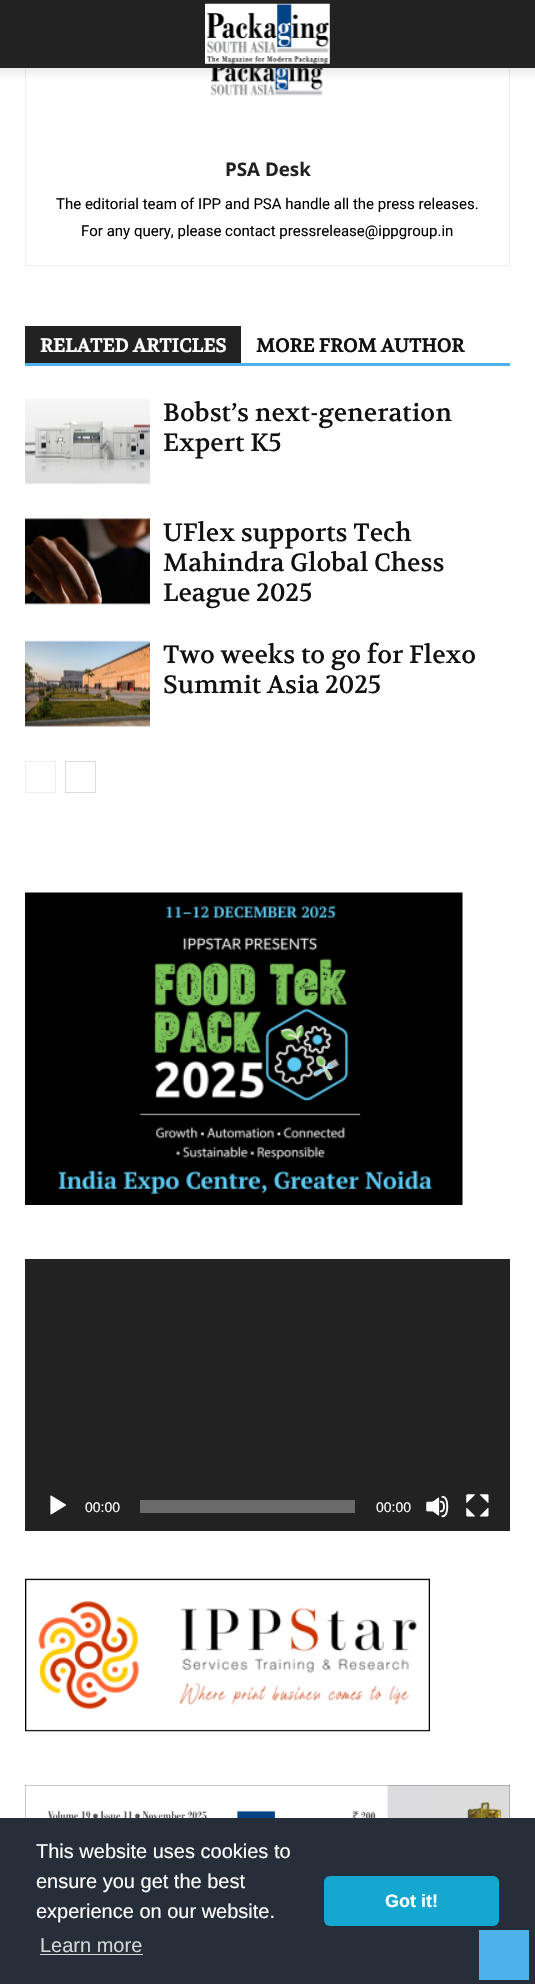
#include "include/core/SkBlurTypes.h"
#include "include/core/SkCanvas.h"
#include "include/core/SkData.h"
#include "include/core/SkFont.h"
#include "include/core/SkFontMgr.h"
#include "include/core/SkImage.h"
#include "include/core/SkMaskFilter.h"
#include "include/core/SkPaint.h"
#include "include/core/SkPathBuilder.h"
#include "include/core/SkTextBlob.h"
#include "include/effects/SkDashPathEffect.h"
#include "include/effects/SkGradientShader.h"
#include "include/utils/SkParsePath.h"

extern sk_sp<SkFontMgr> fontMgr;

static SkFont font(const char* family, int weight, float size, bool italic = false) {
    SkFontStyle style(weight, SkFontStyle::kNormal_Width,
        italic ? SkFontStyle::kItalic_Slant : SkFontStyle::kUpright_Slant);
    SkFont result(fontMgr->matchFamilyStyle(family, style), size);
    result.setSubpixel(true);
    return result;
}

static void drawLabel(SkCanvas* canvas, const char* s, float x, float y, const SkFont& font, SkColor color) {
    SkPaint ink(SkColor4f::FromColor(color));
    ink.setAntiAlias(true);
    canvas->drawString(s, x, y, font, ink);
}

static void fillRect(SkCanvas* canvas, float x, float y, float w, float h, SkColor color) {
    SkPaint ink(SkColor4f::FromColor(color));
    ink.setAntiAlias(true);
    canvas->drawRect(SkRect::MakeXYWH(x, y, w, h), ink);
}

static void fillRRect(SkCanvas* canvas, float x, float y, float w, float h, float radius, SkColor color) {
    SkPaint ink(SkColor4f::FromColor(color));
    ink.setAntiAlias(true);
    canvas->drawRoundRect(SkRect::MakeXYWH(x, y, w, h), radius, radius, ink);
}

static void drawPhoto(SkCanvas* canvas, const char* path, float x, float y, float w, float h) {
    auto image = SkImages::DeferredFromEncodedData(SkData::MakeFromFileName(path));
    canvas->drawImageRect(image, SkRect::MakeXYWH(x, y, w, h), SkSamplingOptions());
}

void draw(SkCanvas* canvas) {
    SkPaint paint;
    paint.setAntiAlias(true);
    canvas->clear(0xFFFFFFFF);
    paint.setStroke(true);
    paint.setStrokeWidth(1);
    paint.setColor(0xFFEDEDED);
    canvas->drawRect(SkRect::MakeXYWH(25.5f, -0.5f, 484, 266), paint);
    fillRect(canvas, 0, 0, 535, 68, 0xFF222222);
    drawPhoto(canvas, "assets/img1.png", 205, 3, 125, 61);
    drawPhoto(canvas, "assets/img3.png", 211, 68, 112, 28);
    drawPhoto(canvas, "assets/img2.png", 0, 68, 535, 10);
    SkFont font1 = font("Open Sans", 700, 18.75f);
    drawLabel(canvas, "PSA Desk", 225, 176, font1, 0xFF222222);
    SkFont font2 = font("Roboto", 400, 15);
    drawLabel(canvas, "The editorial team of IPP and PSA handle all the press releases.", 56, 209, font2, 0xFF000000);
    drawLabel(canvas, "For any query, please contact pressrelease@ippgroup.in", 81, 236, font2, 0xFF000000);
    fillRect(canvas, 25, 363, 485, 3, 0xFF4DB2EC);
    fillRect(canvas, 25, 326, 216, 37, 0xFF222222);
    SkFont font3 = font("Volkhov", 700, 18.75f);
    drawLabel(canvas, "RELATED ARTICLES", 40, 352, font3, 0xFFFFFFFF);
    drawLabel(canvas, "MORE FROM AUTHOR", 256, 352, font3, 0xFF111111);
    drawPhoto(canvas, "assets/img4.png", 25, 398, 125, 87);
    SkFont font4 = font("Volkhov", 400, 25);
    drawLabel(canvas, "Bobst’s next-generation", 163, 421, font4, 0xFF111111);
    drawLabel(canvas, "Expert K5", 163, 451, font4, 0xFF111111);
    drawPhoto(canvas, "assets/img5.png", 25, 518, 125, 87);
    drawLabel(canvas, "UFlex supports Tech", 163, 541, font4, 0xFF111111);
    drawLabel(canvas, "Mahindra Global Chess", 163, 571, font4, 0xFF111111);
    drawLabel(canvas, "League 2025", 163, 601, font4, 0xFF111111);
    drawPhoto(canvas, "assets/img6.png", 25, 640, 125, 87);
    drawLabel(canvas, "Two weeks to go for Flexo", 163, 663, font4, 0xFF111111);
    drawLabel(canvas, "Summit Asia 2025", 163, 693, font4, 0xFF111111);
    paint.setColor(0xFFEEEEEE);
    canvas->drawRect(SkRect::MakeXYWH(25.5f, 761.5f, 30, 31), paint);
    paint.setColor(0xFFDCDCDC);
    canvas->drawRect(SkRect::MakeXYWH(65.5f, 761.5f, 30, 31), paint);
    drawPhoto(canvas, "assets/img7.png", 25, 892, 438, 313);
    fillRect(canvas, 25, 1259, 485, 272, 0xFF222222);
    drawPhoto(canvas, "assets/img8.png", 50, 1495, 16, 20);
    SkFont font5 = font("Liberation Sans", 400, 14);
    drawLabel(canvas, "00:00", 85, 1512, font5, 0xFFFFFFFF);
    fillRect(canvas, 140, 1500, 215, 13, 0xFF6B6B6B);
    drawLabel(canvas, "00:00", 376, 1512, font5, 0xFFFFFFFF);
    drawPhoto(canvas, "assets/img9.png", 426, 1495, 23, 23);
    drawPhoto(canvas, "assets/img10.png", 466, 1494, 23, 23);
    drawPhoto(canvas, "assets/img11.png", 25, 1578, 405, 154);
    drawPhoto(canvas, "assets/img12.png", 25, 1785, 485, 33);
    fillRect(canvas, 0, 1818, 535, 166, 0xFF252E39);
    SkFont font6 = font("Liberation Sans", 400, 20);
    drawLabel(canvas, "This website uses cookies to", 36, 1858, font6, 0xFFFFFFFF);
    drawLabel(canvas, "ensure you get the best", 36, 1888, font6, 0xFFFFFFFF);
    drawLabel(canvas, "experience on our website.", 36, 1918, font6, 0xFFFFFFFF);
    drawLabel(canvas, "Learn more", 40, 1952, font6, 0xFFD3D5D7);
    fillRect(canvas, 40, 1954, 103, 1, 0xFFD3D5D7);
    fillRRect(canvas, 324, 1876, 175, 50, 6, 0xFF14A7D0);
    SkFont font7 = font("Liberation Sans", 700, 18);
    drawLabel(canvas, "Got it!", 385, 1907, font7, 0xFFFFFFFF);
    fillRect(canvas, 479, 1930, 50, 50, 0xFF4DB2EC);
}
